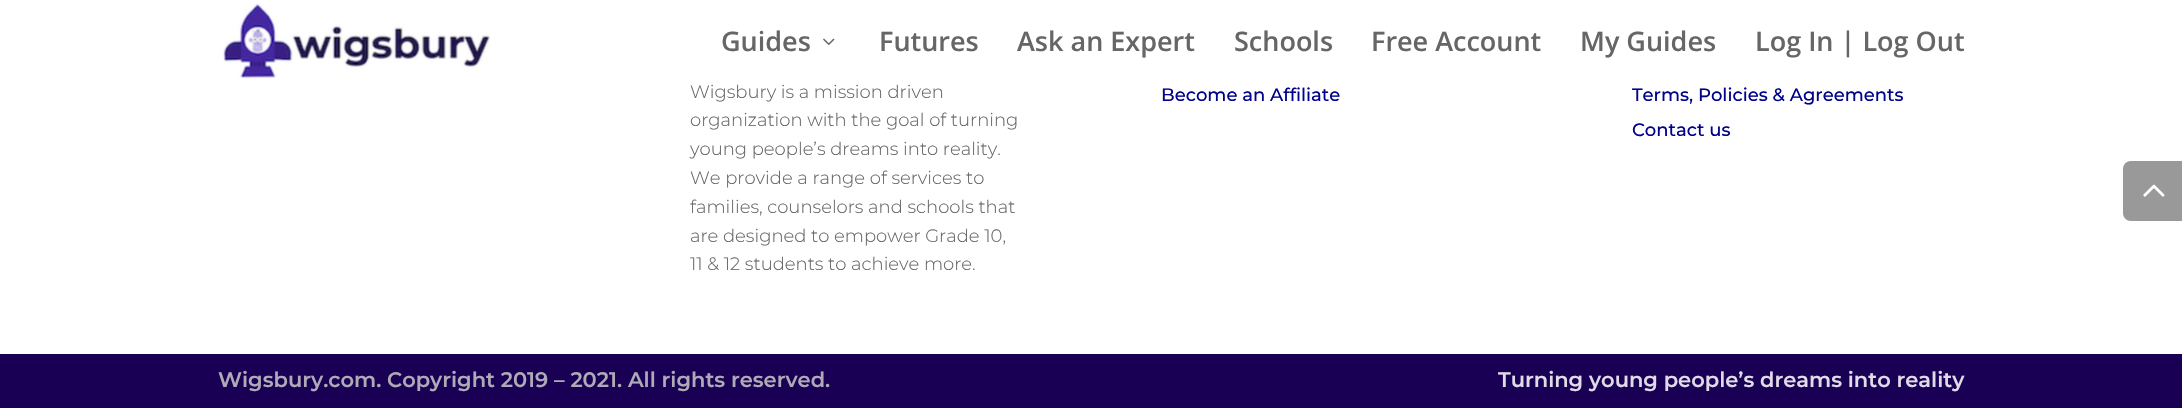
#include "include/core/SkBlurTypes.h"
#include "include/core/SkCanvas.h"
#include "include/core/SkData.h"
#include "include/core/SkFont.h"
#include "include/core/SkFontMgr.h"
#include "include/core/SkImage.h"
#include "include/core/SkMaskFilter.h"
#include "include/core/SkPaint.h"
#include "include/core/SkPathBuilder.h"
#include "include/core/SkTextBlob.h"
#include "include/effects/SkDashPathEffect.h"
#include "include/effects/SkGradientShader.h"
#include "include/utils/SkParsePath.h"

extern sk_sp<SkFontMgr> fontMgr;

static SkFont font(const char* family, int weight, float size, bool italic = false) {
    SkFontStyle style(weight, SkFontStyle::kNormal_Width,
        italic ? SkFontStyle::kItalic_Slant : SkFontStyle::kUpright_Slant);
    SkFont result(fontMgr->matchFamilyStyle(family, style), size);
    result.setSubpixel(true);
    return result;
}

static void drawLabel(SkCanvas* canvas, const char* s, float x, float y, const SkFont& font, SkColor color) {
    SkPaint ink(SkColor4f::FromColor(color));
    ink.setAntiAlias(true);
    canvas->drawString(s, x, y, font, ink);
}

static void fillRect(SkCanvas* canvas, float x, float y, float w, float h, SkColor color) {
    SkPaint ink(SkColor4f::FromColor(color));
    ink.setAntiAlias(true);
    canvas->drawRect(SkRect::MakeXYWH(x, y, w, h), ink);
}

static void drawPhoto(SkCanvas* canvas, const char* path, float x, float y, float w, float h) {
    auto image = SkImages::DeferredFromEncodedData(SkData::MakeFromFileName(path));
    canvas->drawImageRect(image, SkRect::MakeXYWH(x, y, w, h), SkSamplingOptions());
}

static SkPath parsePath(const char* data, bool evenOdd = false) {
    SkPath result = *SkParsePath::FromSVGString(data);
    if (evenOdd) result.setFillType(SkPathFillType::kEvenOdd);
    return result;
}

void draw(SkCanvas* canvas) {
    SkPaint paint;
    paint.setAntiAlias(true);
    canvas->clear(0xFFFFFFFF);
    drawPhoto(canvas, "assets/img1.png", 223, 3, 267, 76);
    SkFont font1 = font("Open Sans", 600, 27);
    drawLabel(canvas, "Guides", 721, 51, font1, 0xFF666666);
    drawPhoto(canvas, "assets/img2.png", 823, 38, 12, 7);
    drawLabel(canvas, "Futures", 879, 51, font1, 0xFF666666);
    drawLabel(canvas, "Ask an Expert", 1017, 51, font1, 0xFF666666);
    drawLabel(canvas, "Schools", 1234, 51, font1, 0xFF666666);
    drawLabel(canvas, "Free Account", 1371, 51, font1, 0xFF666666);
    drawLabel(canvas, "My Guides", 1580, 51, font1, 0xFF666666);
    drawLabel(canvas, "Log In | Log Out", 1755, 51, font1, 0xFF666666);
    SkFont font2 = font("Montserrat", 100, 18);
    drawLabel(canvas, "Wigsbury is a mission driven", 690, 98, font2, 0xFF666666);
    drawLabel(canvas, "organization with the goal of turning", 690, 126, font2, 0xFF666666);
    drawLabel(canvas, "young people’s dreams into reality.", 690, 155, font2, 0xFF666666);
    drawLabel(canvas, "We provide a range of services to", 690, 184, font2, 0xFF666666);
    drawLabel(canvas, "families, counselors and schools that", 690, 213, font2, 0xFF666666);
    drawLabel(canvas, "are designed to empower Grade 10,", 690, 242, font2, 0xFF666666);
    drawLabel(canvas, "11 & 12 students to achieve more.", 690, 270, font2, 0xFF666666);
    SkFont font3 = font("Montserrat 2", 100, 18);
    drawLabel(canvas, "Become an Affiliate", 1161, 101, font3, 0xFF00028C);
    drawLabel(canvas, "Terms, Policies & Agreements", 1632, 101, font3, 0xFF00028C);
    drawLabel(canvas, "Contact us", 1632, 136, font3, 0xFF00028C);
    fillRect(canvas, 0, 354, 2182, 54, 0xFF1A0054);
    SkFont font4 = font("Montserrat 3", 100, 21);
    drawLabel(canvas, "Wigsbury.com. Copyright 2019 – 2021. All rights reserved.", 218, 387, font4, 0xFFAEAAB6);
    drawLabel(canvas, "Turning young people’s dreams into reality", 1498, 387, font4, 0xFFDFDBE7);
    paint.setColor(0xFF999999);
    canvas->drawPath(parsePath("M2131 161H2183V221H2131C2126.5 221 2123 217.5 2123 213V169C2123 164.5 2126.5 161 2131 161Z"), paint);
    drawPhoto(canvas, "assets/img3.png", 2143, 184, 22, 13);
}
